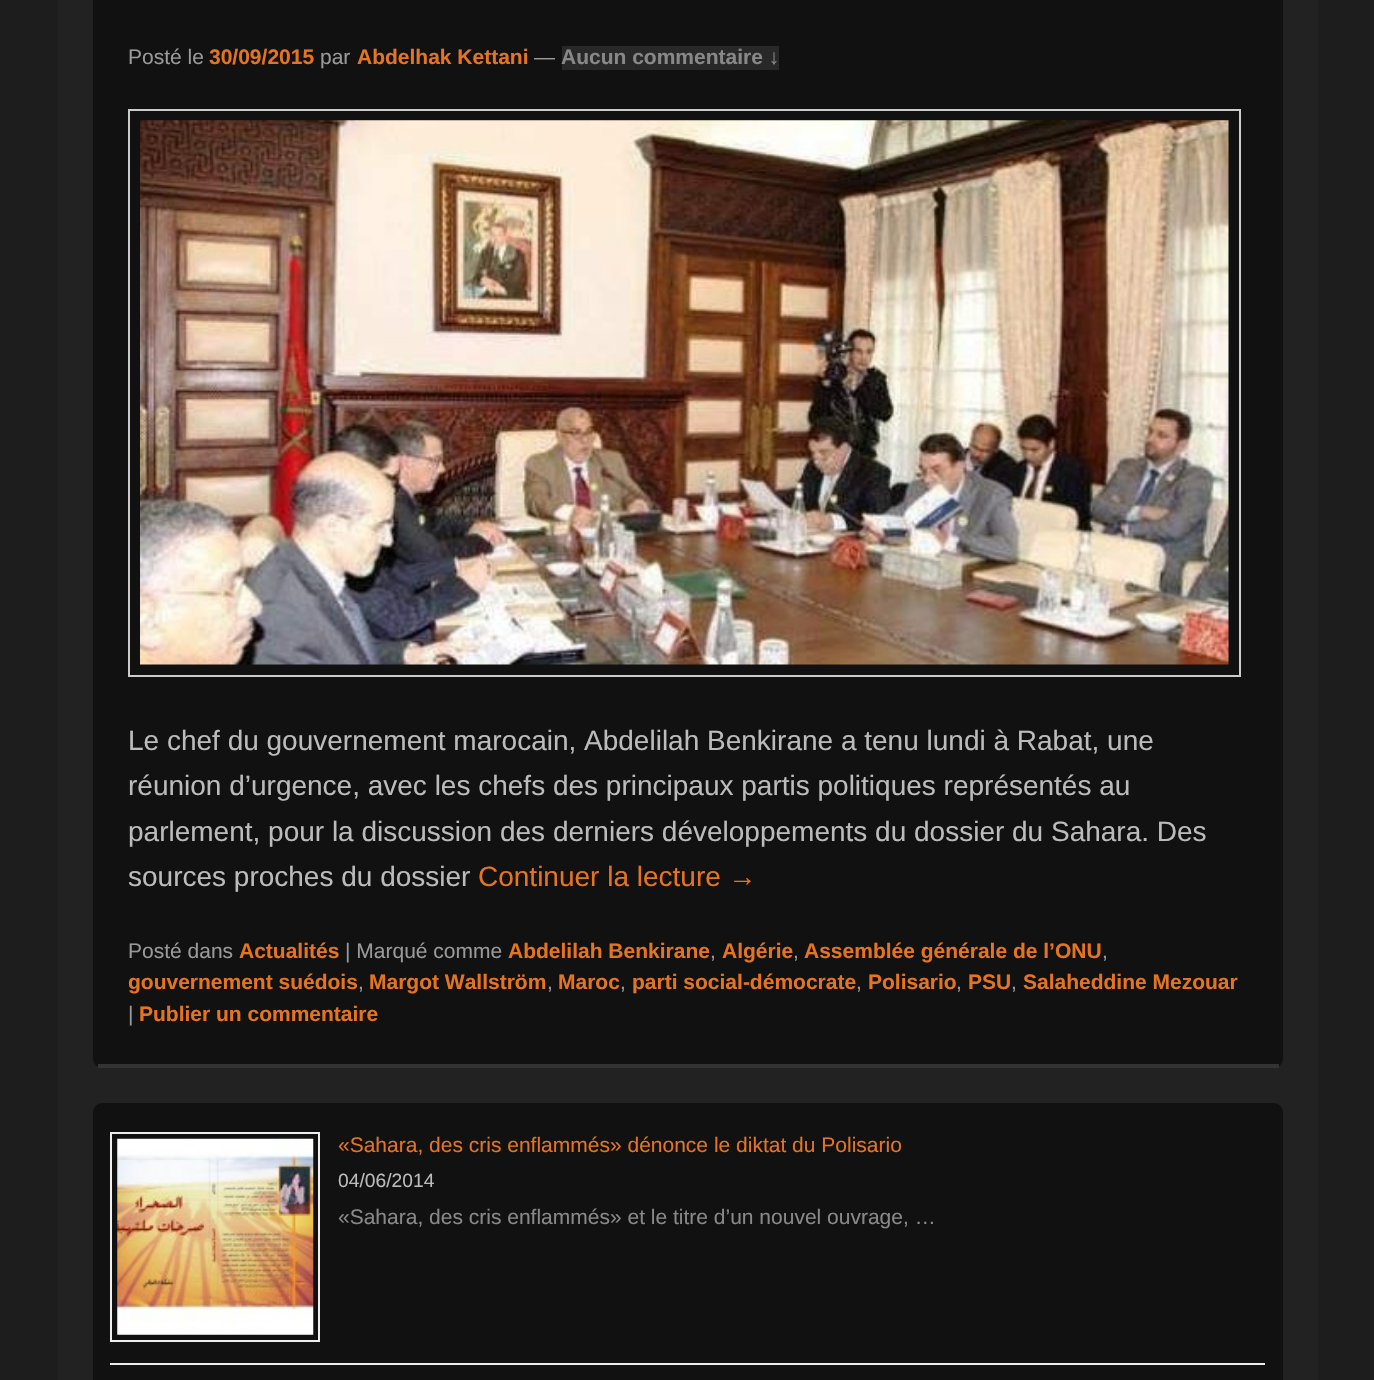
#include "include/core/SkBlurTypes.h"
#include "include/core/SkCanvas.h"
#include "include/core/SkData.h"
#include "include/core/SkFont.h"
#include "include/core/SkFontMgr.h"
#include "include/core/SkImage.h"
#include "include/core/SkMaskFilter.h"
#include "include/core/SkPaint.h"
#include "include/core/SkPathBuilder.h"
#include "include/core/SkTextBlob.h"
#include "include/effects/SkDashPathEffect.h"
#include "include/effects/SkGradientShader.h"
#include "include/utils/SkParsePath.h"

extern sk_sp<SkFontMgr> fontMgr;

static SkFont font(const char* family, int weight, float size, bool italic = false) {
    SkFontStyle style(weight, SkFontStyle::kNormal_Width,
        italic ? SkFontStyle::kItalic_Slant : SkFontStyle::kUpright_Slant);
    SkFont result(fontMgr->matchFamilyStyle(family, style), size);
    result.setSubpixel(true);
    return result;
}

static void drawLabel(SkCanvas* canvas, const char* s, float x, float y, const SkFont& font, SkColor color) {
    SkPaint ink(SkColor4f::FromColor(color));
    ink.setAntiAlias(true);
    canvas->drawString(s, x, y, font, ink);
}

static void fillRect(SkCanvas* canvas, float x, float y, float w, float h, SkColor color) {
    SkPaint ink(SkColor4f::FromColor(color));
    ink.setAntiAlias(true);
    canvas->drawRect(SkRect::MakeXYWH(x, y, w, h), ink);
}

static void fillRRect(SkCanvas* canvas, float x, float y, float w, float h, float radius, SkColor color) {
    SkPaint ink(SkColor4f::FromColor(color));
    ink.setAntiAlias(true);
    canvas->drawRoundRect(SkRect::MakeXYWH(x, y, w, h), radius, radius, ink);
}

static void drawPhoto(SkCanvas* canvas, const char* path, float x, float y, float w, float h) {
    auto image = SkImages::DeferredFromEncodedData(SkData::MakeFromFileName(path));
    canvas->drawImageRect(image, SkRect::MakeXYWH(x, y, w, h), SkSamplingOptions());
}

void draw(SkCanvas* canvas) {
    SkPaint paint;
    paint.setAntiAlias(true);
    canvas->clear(0xFF1D1D1D);
    fillRect(canvas, 58, 0, 1260, 1380, 0xFF222222);
    fillRRect(canvas, 93, -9, 1190, 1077, 9, 0xFF111111);
    fillRect(canvas, 98, 1064, 1181, 4, 0xFF333333);
    SkFont font1 = font("Liberation Sans", 400, 21);
    drawLabel(canvas, "Posté le", 128, 64, font1, 0xFF999999);
    SkFont font2 = font("Liberation Sans", 700, 21);
    drawLabel(canvas, "30/09/2015", 209, 64, font2, 0xFFE4741F);
    drawLabel(canvas, "par", 320, 64, font1, 0xFF999999);
    drawLabel(canvas, "Abdelhak Kettani", 357, 64, font2, 0xFFE4741F);
    drawLabel(canvas, "—", 534, 64, font1, 0xFF999999);
    fillRect(canvas, 562, 46, 217, 24, 0xFF282828);
    drawLabel(canvas, "Aucun commentaire ↓", 561, 64, font2, 0xFF888888);
    paint.setStroke(true);
    paint.setStrokeWidth(2);
    paint.setColor(0xFFCCCCCC);
    canvas->drawRect(SkRect::MakeXYWH(129, 110, 1111, 566), paint);
    drawPhoto(canvas, "assets/img1.png", 140, 120, 1089, 545);
    SkFont font3 = font("Liberation Sans", 400, 28);
    drawLabel(canvas, "Le chef du gouvernement marocain, Abdelilah Benkirane a tenu lundi à Rabat, une", 128, 750, font3, 0xFFBBBBBB);
    drawLabel(canvas, "réunion d’urgence, avec les chefs des principaux partis politiques représentés au", 128, 795, font3, 0xFFBBBBBB);
    drawLabel(canvas, "parlement, pour la discussion des derniers développements du dossier du Sahara. Des", 128, 841, font3, 0xFFBBBBBB);
    drawLabel(canvas, "sources proches du dossier", 128, 886, font3, 0xFFBBBBBB);
    drawLabel(canvas, "Continuer la lecture →", 478, 886, font3, 0xFFE4741F);
    drawLabel(canvas, "Posté dans", 128, 958, font1, 0xFF999999);
    drawLabel(canvas, "Actualités", 239, 958, font2, 0xFFE4741F);
    drawLabel(canvas, "| Marqué comme", 345, 958, font1, 0xFF999999);
    drawLabel(canvas, "Abdelilah Benkirane", 508, 958, font2, 0xFFE4741F);
    drawLabel(canvas, ",", 710, 958, font1, 0xFF999999);
    drawLabel(canvas, "Algérie", 722, 958, font2, 0xFFE4741F);
    drawLabel(canvas, ",", 793, 958, font1, 0xFF999999);
    drawLabel(canvas, "Assemblée générale de l’ONU", 804, 958, font2, 0xFFE4741F);
    drawLabel(canvas, ",", 1102, 958, font1, 0xFF999999);
    drawLabel(canvas, "gouvernement suédois", 128, 989, font2, 0xFFE4741F);
    drawLabel(canvas, ",", 358, 989, font1, 0xFF999999);
    drawLabel(canvas, "Margot Wallström", 369, 989, font2, 0xFFE4741F);
    drawLabel(canvas, ",", 547, 989, font1, 0xFF999999);
    drawLabel(canvas, "Maroc", 558, 989, font2, 0xFFE4741F);
    drawLabel(canvas, ",", 620, 989, font1, 0xFF999999);
    drawLabel(canvas, "parti social-démocrate", 632, 989, font2, 0xFFE4741F);
    drawLabel(canvas, ",", 856, 989, font1, 0xFF999999);
    drawLabel(canvas, "Polisario", 868, 989, font2, 0xFFE4741F);
    drawLabel(canvas, ",", 956, 989, font1, 0xFF999999);
    drawLabel(canvas, "PSU", 968, 989, font2, 0xFFE4741F);
    drawLabel(canvas, ",", 1011, 989, font1, 0xFF999999);
    drawLabel(canvas, "Salaheddine Mezouar", 1023, 989, font2, 0xFFE4741F);
    drawLabel(canvas, "|", 128, 1021, font1, 0xFF999999);
    drawLabel(canvas, "Publier un commentaire", 139, 1021, font2, 0xFFE4741F);
    fillRRect(canvas, 93, 1103, 1190, 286, 9, 0xFF111111);
    fillRect(canvas, 110, 1363, 1155, 2, 0xFFEEEEEE);
    paint.setColor(0xFFEEEEEE);
    canvas->drawRect(SkRect::MakeXYWH(111, 1133, 208, 208), paint);
    drawPhoto(canvas, "assets/img2.png", 117, 1138, 197, 197);
    drawLabel(canvas, "«Sahara, des cris enflammés» dénonce le diktat du Polisario", 338, 1152, font1, 0xFFE4741F);
    SkFont font4 = font("Liberation Sans", 400, 19.25f);
    drawLabel(canvas, "04/06/2014", 338, 1187, font4, 0xFFBBBBBB);
    drawLabel(canvas, "«Sahara, des cris enflammés» et le titre d’un nouvel ouvrage, …", 338, 1224, font1, 0xFF888888);
}
